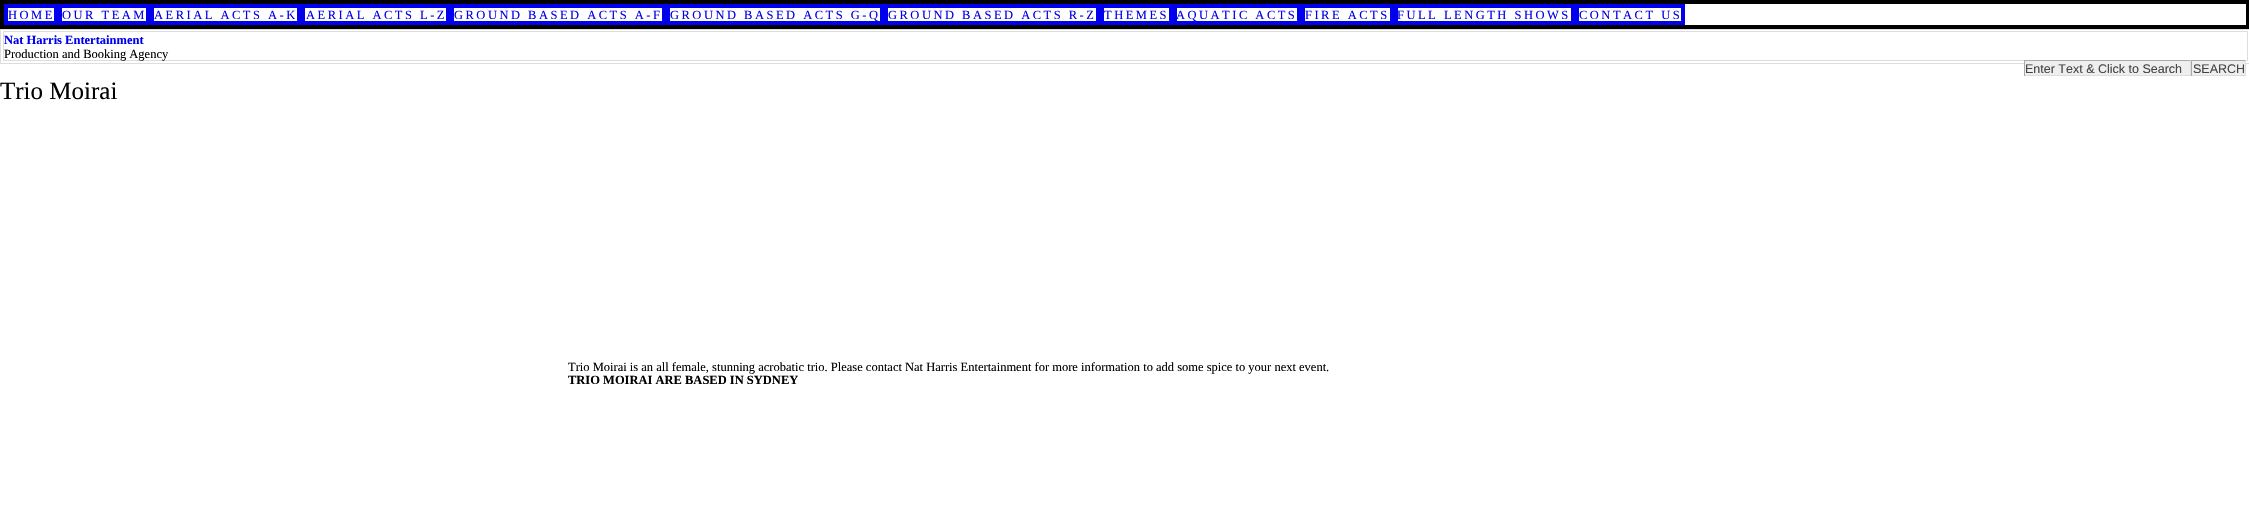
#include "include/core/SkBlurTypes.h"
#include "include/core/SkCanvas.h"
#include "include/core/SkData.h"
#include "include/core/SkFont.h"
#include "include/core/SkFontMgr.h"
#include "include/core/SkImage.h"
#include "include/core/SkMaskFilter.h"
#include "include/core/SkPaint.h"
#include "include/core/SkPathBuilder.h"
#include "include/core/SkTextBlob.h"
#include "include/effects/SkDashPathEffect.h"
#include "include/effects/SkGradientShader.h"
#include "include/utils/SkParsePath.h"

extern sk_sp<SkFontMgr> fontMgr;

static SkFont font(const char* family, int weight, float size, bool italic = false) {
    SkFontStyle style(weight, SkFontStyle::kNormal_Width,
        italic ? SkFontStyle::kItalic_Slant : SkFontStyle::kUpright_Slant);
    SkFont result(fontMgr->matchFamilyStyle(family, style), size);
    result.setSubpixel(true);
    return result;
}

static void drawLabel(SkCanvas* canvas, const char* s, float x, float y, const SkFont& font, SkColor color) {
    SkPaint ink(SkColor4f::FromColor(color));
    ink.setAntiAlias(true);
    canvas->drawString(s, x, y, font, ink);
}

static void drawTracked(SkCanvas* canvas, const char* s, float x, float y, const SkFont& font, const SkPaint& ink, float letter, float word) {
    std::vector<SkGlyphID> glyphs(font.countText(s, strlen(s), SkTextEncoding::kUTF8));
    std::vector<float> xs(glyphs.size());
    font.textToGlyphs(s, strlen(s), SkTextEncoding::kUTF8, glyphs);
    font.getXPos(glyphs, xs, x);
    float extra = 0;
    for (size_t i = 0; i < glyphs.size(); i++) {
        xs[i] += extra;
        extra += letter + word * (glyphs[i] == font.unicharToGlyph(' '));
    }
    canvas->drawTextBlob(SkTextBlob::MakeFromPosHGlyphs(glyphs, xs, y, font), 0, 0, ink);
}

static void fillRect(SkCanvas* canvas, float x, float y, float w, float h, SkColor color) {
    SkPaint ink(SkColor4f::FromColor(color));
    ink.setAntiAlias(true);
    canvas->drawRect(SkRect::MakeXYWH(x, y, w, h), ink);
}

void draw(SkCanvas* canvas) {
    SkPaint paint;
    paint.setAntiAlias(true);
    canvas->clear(0xFFFFFFFF);
    paint.setStroke(true);
    paint.setStrokeWidth(4);
    paint.setColor(0xFF000000);
    canvas->drawRect(SkRect::MakeXYWH(2, 2, 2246, 25), paint);
    paint.setColor(0xFF0000EE);
    canvas->drawRect(SkRect::MakeXYWH(6, 6, 50, 17), paint);
    SkFont font1 = font("Liberation Serif", 400, 12.5f);
    paint.setStroke(false);
    drawTracked(canvas, "HOME", 8, 19, font1, paint, 2.5f, 0);
    paint.setStroke(true);
    canvas->drawRect(SkRect::MakeXYWH(60, 6, 88, 17), paint);
    paint.setStroke(false);
    drawTracked(canvas, "OUR TEAM", 62, 19, font1, paint, 2.5f, 0);
    paint.setStroke(true);
    canvas->drawRect(SkRect::MakeXYWH(152, 6, 147, 17), paint);
    paint.setStroke(false);
    drawTracked(canvas, "AERIAL ACTS A-K", 154, 19, font1, paint, 2.5f, 0);
    paint.setStroke(true);
    canvas->drawRect(SkRect::MakeXYWH(303, 6, 145, 17), paint);
    paint.setStroke(false);
    drawTracked(canvas, "AERIAL ACTS L-Z", 306, 19, font1, paint, 2.5f, 0);
    paint.setStroke(true);
    canvas->drawRect(SkRect::MakeXYWH(452, 6, 212, 17), paint);
    paint.setStroke(false);
    drawTracked(canvas, "GROUND BASED ACTS A-F", 454, 19, font1, paint, 2.5f, 0);
    paint.setStroke(true);
    canvas->drawRect(SkRect::MakeXYWH(668, 6, 214, 17), paint);
    paint.setStroke(false);
    drawTracked(canvas, "GROUND BASED ACTS G-Q", 670, 19, font1, paint, 2.5f, 0);
    paint.setStroke(true);
    canvas->drawRect(SkRect::MakeXYWH(886, 6, 212, 17), paint);
    paint.setStroke(false);
    drawTracked(canvas, "GROUND BASED ACTS R-Z", 888, 19, font1, paint, 2.5f, 0);
    paint.setStroke(true);
    canvas->drawRect(SkRect::MakeXYWH(1102, 6, 69, 17), paint);
    paint.setStroke(false);
    drawTracked(canvas, "THEMES", 1104, 19, font1, paint, 2.5f, 0);
    paint.setStroke(true);
    canvas->drawRect(SkRect::MakeXYWH(1175, 6, 124, 17), paint);
    paint.setStroke(false);
    drawTracked(canvas, "AQUATIC ACTS", 1176, 19, font1, paint, 2.5f, 0);
    paint.setStroke(true);
    canvas->drawRect(SkRect::MakeXYWH(1303, 6, 89, 17), paint);
    paint.setStroke(false);
    drawTracked(canvas, "FIRE ACTS", 1305, 19, font1, paint, 2.5f, 0);
    paint.setStroke(true);
    canvas->drawRect(SkRect::MakeXYWH(1396, 6, 177, 17), paint);
    paint.setStroke(false);
    drawTracked(canvas, "FULL LENGTH SHOWS", 1397, 19, font1, paint, 2.5f, 0);
    paint.setStroke(true);
    canvas->drawRect(SkRect::MakeXYWH(1577, 6, 106, 17), paint);
    paint.setStroke(false);
    drawTracked(canvas, "CONTACT US", 1579, 19, font1, paint, 2.5f, 0);
    paint.setStroke(true);
    paint.setStrokeWidth(1);
    paint.setColor(0xFFDDDDDD);
    canvas->drawRect(SkRect::MakeXYWH(0.5f, 29.5f, 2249, 34), paint);
    canvas->drawRect(SkRect::MakeXYWH(3.5f, 31.5f, 2244, 29), paint);
    SkFont font2 = font("Liberation Serif", 700, 12.5f);
    drawLabel(canvas, "Nat Harris Entertainment", 4, 44, font2, 0xFF0000EE);
    drawLabel(canvas, "Production and Booking Agency", 4, 58, font1, 0xFF000000);
    fillRect(canvas, 2025, 61, 165, 14, 0xFFEEEEEE);
    fillRect(canvas, 2024, 60, 222, 1, 0xFFAAAAAA);
    fillRect(canvas, 2190, 60, 1, 16, 0xFFDDDDDD);
    fillRect(canvas, 2024, 75, 167, 1, 0xFFDDDDDD);
    fillRect(canvas, 2024, 60, 1, 16, 0xFFAAAAAA);
    SkFont font3 = font("Liberation Sans", 400, 12.5f);
    drawLabel(canvas, "Enter Text & Click to Search", 2025, 73, font3, 0xFF444444);
    fillRect(canvas, 2192, 61, 53, 14, 0xFFEEEEEE);
    fillRect(canvas, 2245, 60, 1, 16, 0xFFDDDDDD);
    fillRect(canvas, 2191, 75, 55, 1, 0xFFDDDDDD);
    fillRect(canvas, 2191, 60, 1, 16, 0xFFAAAAAA);
    drawLabel(canvas, "SEARCH", 2193, 73, font3, 0xFF444444);
    SkFont font4 = font("Liberation Serif", 400, 25);
    drawLabel(canvas, "Trio Moirai", 0, 99, font4, 0xFF000000);
    drawLabel(canvas, "Trio Moirai is an all female, stunning acrobatic trio. Please contact Nat Harris Entertainment for more information to add some spice to your next event.", 568, 371, font1, 0xFF000000);
    drawLabel(canvas, "TRIO MOIRAI ARE BASED IN SYDNEY", 568, 384, font2, 0xFF000000);
}
